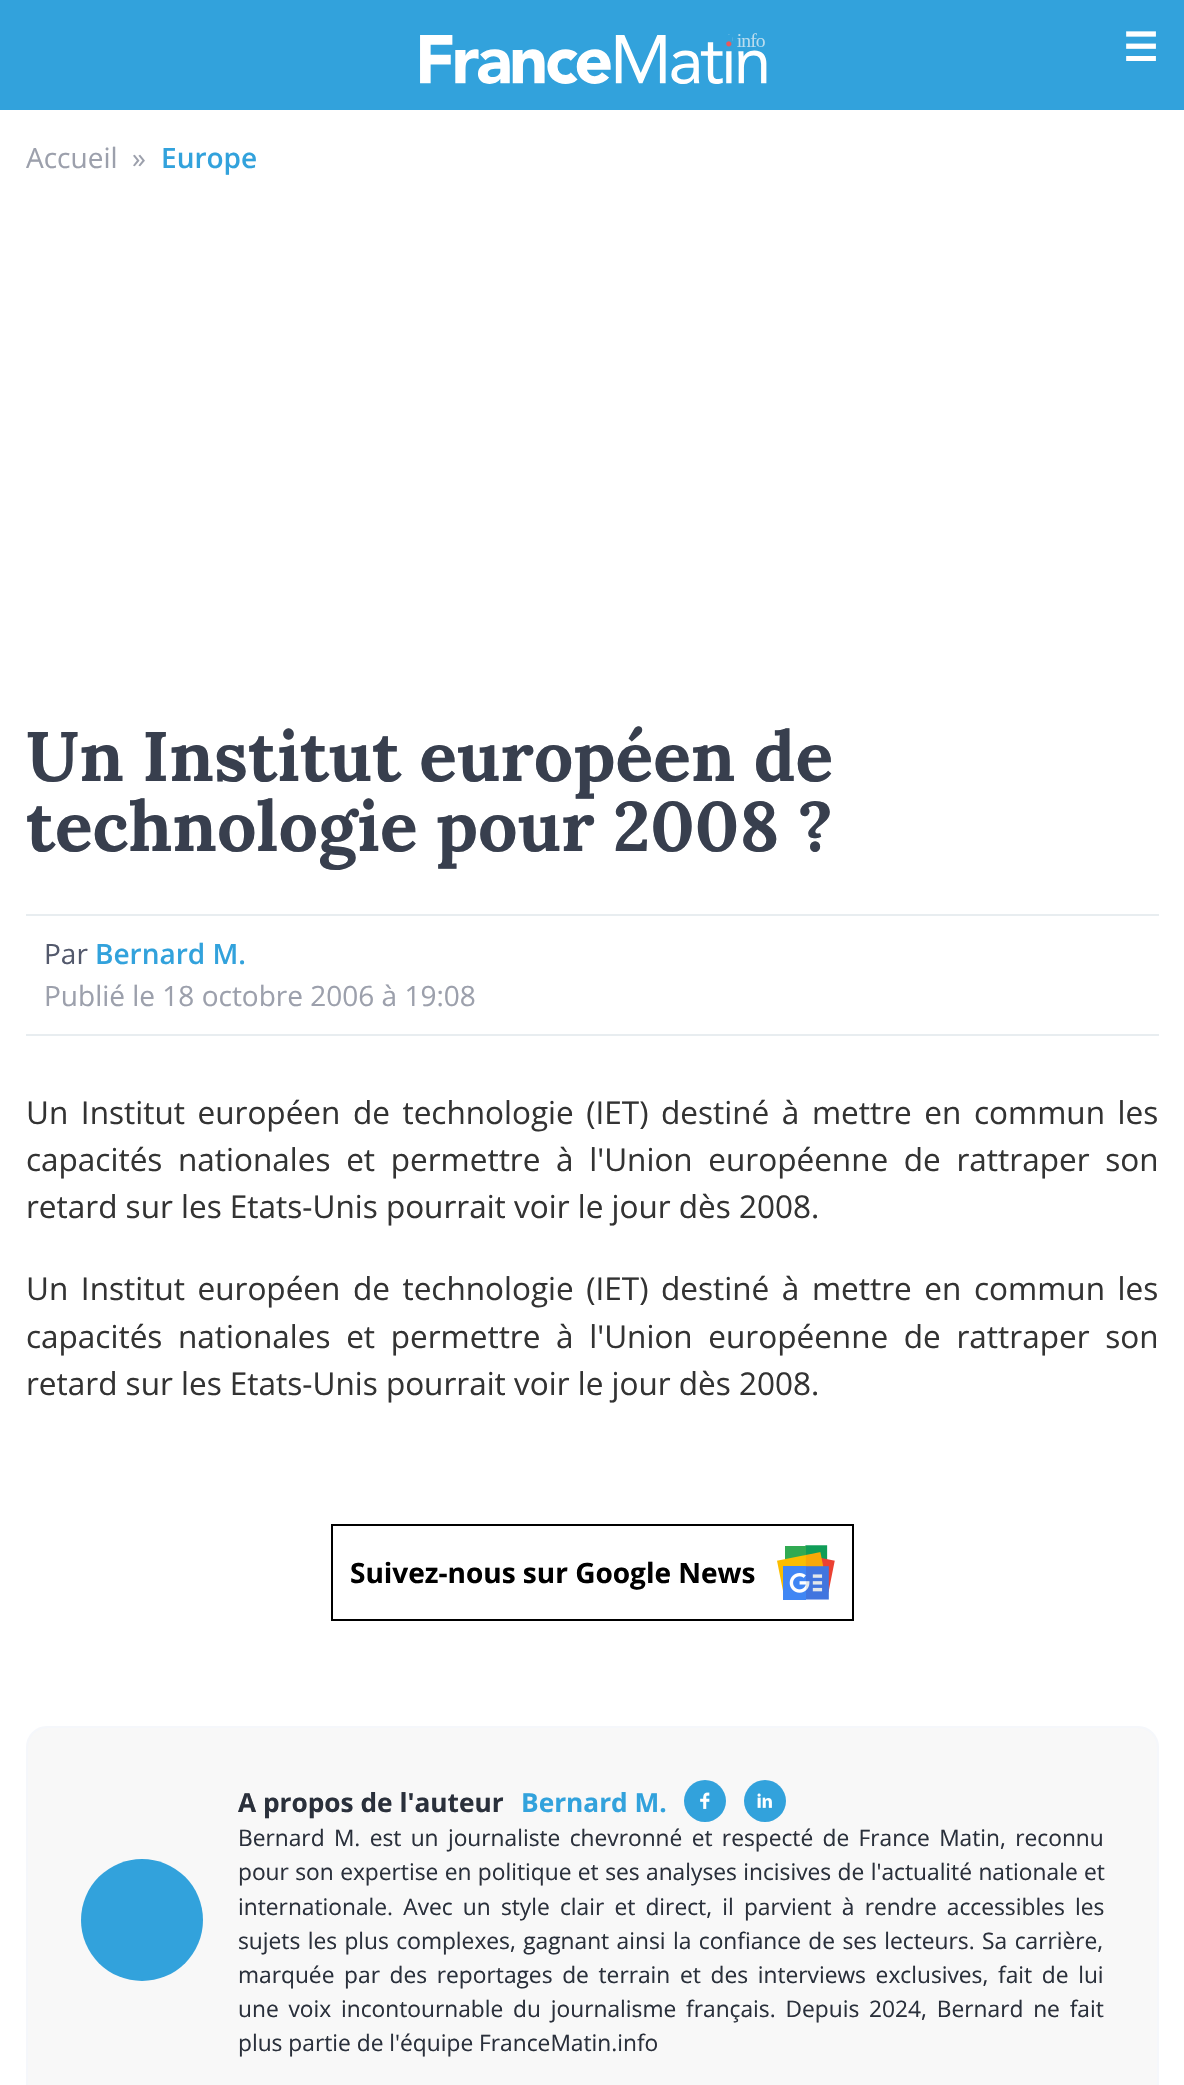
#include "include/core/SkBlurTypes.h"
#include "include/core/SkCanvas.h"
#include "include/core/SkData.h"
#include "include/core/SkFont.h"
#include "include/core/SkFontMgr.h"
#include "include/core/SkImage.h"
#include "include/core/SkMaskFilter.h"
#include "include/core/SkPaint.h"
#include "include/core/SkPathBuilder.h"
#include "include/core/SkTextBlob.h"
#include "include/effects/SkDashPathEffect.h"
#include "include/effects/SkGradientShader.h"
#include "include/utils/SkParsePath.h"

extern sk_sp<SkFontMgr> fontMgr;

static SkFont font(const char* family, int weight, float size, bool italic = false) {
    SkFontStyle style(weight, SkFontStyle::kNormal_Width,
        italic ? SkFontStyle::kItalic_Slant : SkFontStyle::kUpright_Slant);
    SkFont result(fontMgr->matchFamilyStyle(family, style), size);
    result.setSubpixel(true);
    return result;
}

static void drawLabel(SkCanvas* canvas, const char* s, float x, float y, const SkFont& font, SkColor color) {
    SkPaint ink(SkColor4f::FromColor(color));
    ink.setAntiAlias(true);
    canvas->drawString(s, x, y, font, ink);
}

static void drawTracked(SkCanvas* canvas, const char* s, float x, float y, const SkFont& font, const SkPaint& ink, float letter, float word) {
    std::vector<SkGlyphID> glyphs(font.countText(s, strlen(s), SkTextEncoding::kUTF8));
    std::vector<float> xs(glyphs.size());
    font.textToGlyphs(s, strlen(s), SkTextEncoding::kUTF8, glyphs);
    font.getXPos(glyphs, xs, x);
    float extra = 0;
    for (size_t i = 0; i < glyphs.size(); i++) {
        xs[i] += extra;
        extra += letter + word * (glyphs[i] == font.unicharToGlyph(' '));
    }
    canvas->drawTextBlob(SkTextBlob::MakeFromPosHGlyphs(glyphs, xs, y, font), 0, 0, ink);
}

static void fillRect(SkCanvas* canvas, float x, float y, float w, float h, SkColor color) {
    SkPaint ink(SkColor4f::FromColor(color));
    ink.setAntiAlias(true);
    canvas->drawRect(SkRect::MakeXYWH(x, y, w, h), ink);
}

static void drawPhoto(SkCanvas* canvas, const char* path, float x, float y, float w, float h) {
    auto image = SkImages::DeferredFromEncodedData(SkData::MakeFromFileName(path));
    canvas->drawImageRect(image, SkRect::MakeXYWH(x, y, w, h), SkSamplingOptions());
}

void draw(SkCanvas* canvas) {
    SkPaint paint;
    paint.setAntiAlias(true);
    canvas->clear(0xFFFFFFFF);
    fillRect(canvas, 0, 0, 1184, 110, 0xFF32A2DC);
    drawPhoto(canvas, "assets/img1.png", 420, 33, 347, 51);
    SkFont font1 = font("DejaVu Sans", 700, 39);
    drawLabel(canvas, "☰", 1123, 61, font1, 0xFFFFFFFF);
    SkFont font2 = font("Open Sans", 400, 28);
    drawLabel(canvas, "Accueil", 26, 168, font2, 0xFF9CA0AC);
    drawLabel(canvas, "»", 132, 168, font2, 0xFF9CA0AC);
    SkFont font3 = font("Open Sans", 600, 28);
    drawLabel(canvas, "Europe", 161, 168, font3, 0xFF32A2DC);
    SkFont font4 = font("Lora", 700, 70);
    drawLabel(canvas, "Un Institut européen de", 26, 781, font4, 0xFF383F4E);
    drawLabel(canvas, "technologie pour 2008 ?", 26, 851, font4, 0xFF383F4E);
    fillRect(canvas, 26, 914, 1133, 2, 0xFFE8EDF0);
    fillRect(canvas, 26, 1034, 1133, 2, 0xFFE8EDF0);
    drawLabel(canvas, "Par", 44, 964, font2, 0xFF53596C);
    drawLabel(canvas, "Bernard M.", 95, 964, font3, 0xFF32A2DC);
    drawLabel(canvas, "Publié le 18 octobre 2006 à 19:08", 44, 1006, font2, 0xFF9CA0AC);
    SkFont font5 = font("Open Sans", 400, 31.5f);
    paint.setColor(0xFF333333);
    drawTracked(canvas, "Un Institut européen de technologie (IET) destiné à mettre en commun les", 26, 1124, font5, paint, 0, 4.4f);
    drawTracked(canvas, "capacités nationales et permettre à l'Union européenne de rattraper son", 26, 1171, font5, paint, 0, 7.5f);
    drawLabel(canvas, "retard sur les Etats-Unis pourrait voir le jour dès 2008.", 26, 1218, font5, 0xFF333333);
    drawTracked(canvas, "Un Institut européen de technologie (IET) destiné à mettre en commun les", 26, 1300, font5, paint, 0, 4.4f);
    drawTracked(canvas, "capacités nationales et permettre à l'Union européenne de rattraper son", 26, 1348, font5, paint, 0, 7.5f);
    drawLabel(canvas, "retard sur les Etats-Unis pourrait voir le jour dès 2008.", 26, 1395, font5, 0xFF333333);
    paint.setStroke(true);
    paint.setStrokeWidth(2);
    paint.setColor(0xFF000000);
    canvas->drawRect(SkRect::MakeXYWH(332, 1525, 521, 95), paint);
    SkFont font6 = font("Open Sans", 700, 28);
    drawLabel(canvas, "Suivez-nous sur Google News", 350, 1583, font6, 0xFF000000);
    drawPhoto(canvas, "assets/img2.png", 777, 1545, 58, 55);
    paint.setStroke(false);
    paint.setColor(0xFFF8F8F8);
    canvas->drawRoundRect(SkRect::MakeXYWH(27, 1727, 1131, 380), 20, 20, paint);
    paint.setStroke(true);
    paint.setColor(0xFFF5F7FB);
    canvas->drawRoundRect(SkRect::MakeXYWH(27, 1727, 1131, 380), 20, 20, paint);
    paint.setStroke(false);
    paint.setColor(0xFF32A2DC);
    canvas->drawCircle(142, 1920, 61, paint);
    SkFont font7 = font("Open Sans", 700, 26.25f);
    drawLabel(canvas, "A propos de l'auteur", 238, 1812, font7, 0xFF2A303B);
    drawLabel(canvas, "Bernard M.", 521, 1812, font7, 0xFF32A2DC);
    canvas->drawCircle(705, 1801, 21, paint);
    drawPhoto(canvas, "assets/img3.png", 700, 1792, 10, 17);
    canvas->drawCircle(765, 1801, 21, paint);
    drawPhoto(canvas, "assets/img4.png", 757, 1793, 15, 15);
    SkFont font8 = font("Open Sans", 400, 22.75f);
    paint.setColor(0xFF2A303B);
    drawTracked(canvas, "Bernard M. est un journaliste chevronné et respecté de France Matin, reconnu", 238, 1846, font8, paint, 0, 3.4f);
    drawTracked(canvas, "pour son expertise en politique et ses analyses incisives de l'actualité nationale et", 238, 1880, font8, paint, 0, 0.5f);
    drawTracked(canvas, "internationale. Avec un style clair et direct, il parvient à rendre accessibles les", 238, 1915, font8, paint, 0, 4.25f);
    drawTracked(canvas, "sujets les plus complexes, gagnant ainsi la confiance de ses lecteurs. Sa carrière,", 238, 1949, font8, paint, 0, 1.5f);
    drawTracked(canvas, "marquée par des reportages de terrain et des interviews exclusives, fait de lui", 238, 1983, font8, paint, 0, 3.75f);
    drawTracked(canvas, "une voix incontournable du journalisme français. Depuis 2024, Bernard ne fait", 238, 2017, font8, paint, 0, 3.9f);
    drawLabel(canvas, "plus partie de l'équipe FranceMatin.info", 238, 2051, font8, 0xFF2A303B);
}
